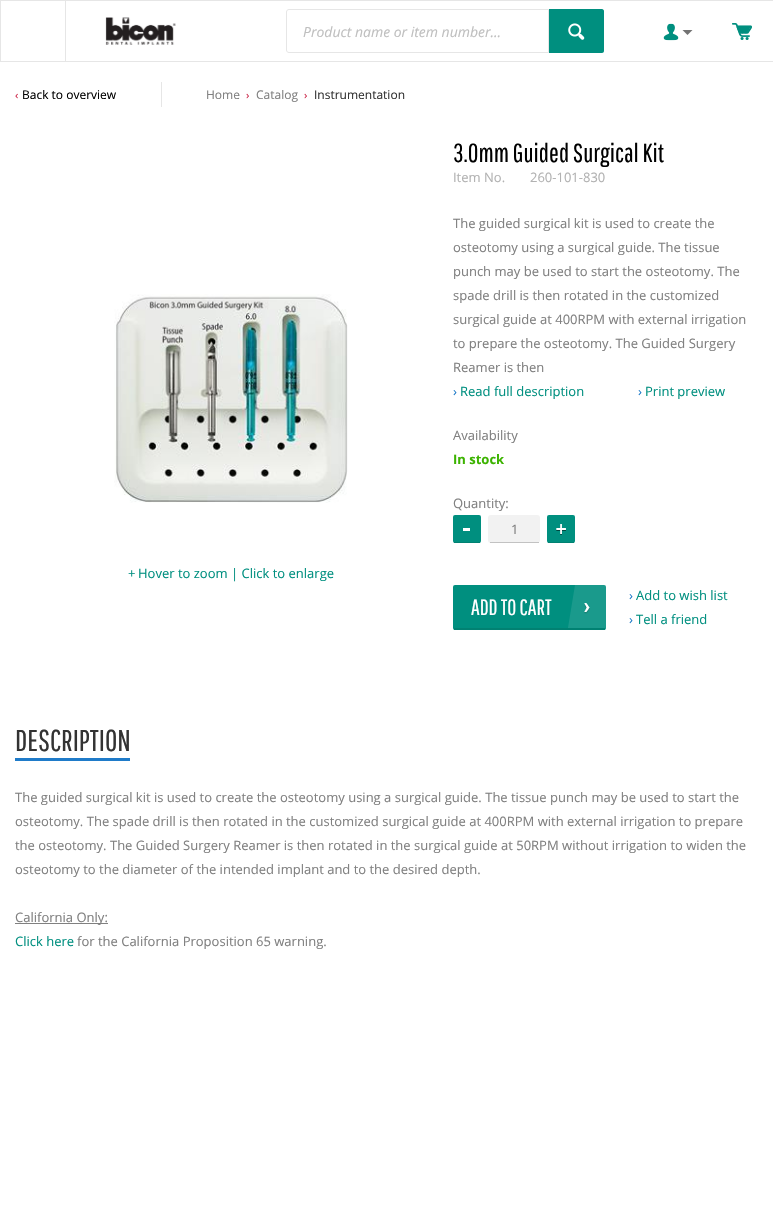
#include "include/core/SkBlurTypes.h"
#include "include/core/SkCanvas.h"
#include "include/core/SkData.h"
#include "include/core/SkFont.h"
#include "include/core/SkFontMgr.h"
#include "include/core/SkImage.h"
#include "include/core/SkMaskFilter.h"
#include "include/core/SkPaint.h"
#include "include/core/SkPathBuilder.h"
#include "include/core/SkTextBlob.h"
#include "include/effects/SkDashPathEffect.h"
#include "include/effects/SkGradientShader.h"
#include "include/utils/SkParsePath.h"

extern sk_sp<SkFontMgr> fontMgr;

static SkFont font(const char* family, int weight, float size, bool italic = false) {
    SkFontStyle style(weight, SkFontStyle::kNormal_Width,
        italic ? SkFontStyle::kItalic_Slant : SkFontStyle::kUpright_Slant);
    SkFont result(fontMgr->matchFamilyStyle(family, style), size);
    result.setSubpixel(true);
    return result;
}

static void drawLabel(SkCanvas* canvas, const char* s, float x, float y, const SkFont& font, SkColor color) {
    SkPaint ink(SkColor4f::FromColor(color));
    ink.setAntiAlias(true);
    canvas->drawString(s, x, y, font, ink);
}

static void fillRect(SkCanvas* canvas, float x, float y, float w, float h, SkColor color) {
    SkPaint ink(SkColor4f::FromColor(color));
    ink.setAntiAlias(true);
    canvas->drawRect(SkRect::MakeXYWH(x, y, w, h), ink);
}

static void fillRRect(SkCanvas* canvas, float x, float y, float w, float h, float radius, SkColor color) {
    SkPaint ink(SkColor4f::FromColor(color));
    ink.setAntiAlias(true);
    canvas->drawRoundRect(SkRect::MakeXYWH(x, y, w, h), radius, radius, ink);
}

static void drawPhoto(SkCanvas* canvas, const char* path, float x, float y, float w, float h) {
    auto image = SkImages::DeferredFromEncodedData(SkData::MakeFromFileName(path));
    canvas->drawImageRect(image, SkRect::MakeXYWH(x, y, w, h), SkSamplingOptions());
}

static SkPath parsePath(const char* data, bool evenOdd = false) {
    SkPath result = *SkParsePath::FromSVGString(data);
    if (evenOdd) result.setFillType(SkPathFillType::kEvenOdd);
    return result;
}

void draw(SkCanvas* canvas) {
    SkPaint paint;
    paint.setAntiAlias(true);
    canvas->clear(0xFFFFFFFF);
    fillRect(canvas, 0, 0, 773, 1, 0xFFE6E6E6);
    fillRect(canvas, 0, 61, 773, 1, 0xFFE6E6E6);
    fillRect(canvas, 65, 1, 1, 60, 0xFFE6E6E6);
    fillRect(canvas, 0, 1, 1, 60, 0xFFE6E6E6);
    drawPhoto(canvas, "assets/img1.png", 105, 17, 71, 28);
    paint.setStroke(true);
    paint.setStrokeWidth(1);
    paint.setColor(0xFFE6E6E6);
    canvas->drawPath(parsePath("M289 9.5H548.5V52.5H289C287.5 52.5 286.5 51.5 286.5 50V12C286.5 10.5 287.5 9.5 289 9.5Z"), paint);
    SkFont font1 = font("Open Sans", 400, 14, true);
    drawLabel(canvas, "Product name or item number...", 303, 37, font1, 0xFFBFBFBF);
    paint.setStroke(false);
    paint.setColor(0xFF008F7F);
    canvas->drawPath(parsePath("M549 9H602C603 9 604 10 604 11V51C604 52 603 53 602 53H549Z"), paint);
    drawPhoto(canvas, "assets/img2.png", 568, 23, 17, 17);
    drawPhoto(canvas, "assets/img3.png", 663, 23, 16, 18);
    drawPhoto(canvas, "assets/img4.png", 682, 30, 11, 5);
    drawPhoto(canvas, "assets/img5.png", 732, 23, 20, 17);
    SkFont font2 = font("Open Sans", 400, 11);
    drawLabel(canvas, "‹", 15, 99, font2, 0xFFCB2245);
    SkFont font3 = font("Open Sans", 400, 12);
    drawLabel(canvas, "Back to overview", 22, 99, font3, 0xFF000000);
    fillRect(canvas, 161, 82, 1, 25, 0xFFE6E6E6);
    drawLabel(canvas, "Home", 206, 99, font3, 0xFF808080);
    drawLabel(canvas, "›", 246, 99, font2, 0xFFCB2245);
    drawLabel(canvas, "Catalog", 256, 99, font3, 0xFF808080);
    drawLabel(canvas, "›", 304, 99, font2, 0xFFCB2245);
    drawLabel(canvas, "Instrumentation", 314, 99, font3, 0xFF333333);
    drawPhoto(canvas, "assets/img6.png", 114, 294, 234, 209);
    SkFont font4 = font("Open Sans", 400, 13);
    drawLabel(canvas, "+", 128, 578, font4, 0xFF008F7F);
    drawLabel(canvas, "Hover to zoom | Click to enlarge", 138, 578, font4, 0xFF008F7F);
    SkFont font5 = font("Pathway Gothic One", 400, 26);
    drawLabel(canvas, "3.0mm Guided Surgical Kit", 453, 162, font5, 0xFF000000);
    drawLabel(canvas, "Item No.", 453, 182, font4, 0xFFB2B2B2);
    drawLabel(canvas, "260-101-830", 530, 182, font4, 0xFFB2B2B2);
    drawLabel(canvas, "The guided surgical kit is used to create the", 453, 228, font4, 0xFF808080);
    drawLabel(canvas, "osteotomy using a surgical guide. The tissue", 453, 252, font4, 0xFF808080);
    drawLabel(canvas, "punch may be used to start the osteotomy. The", 453, 276, font4, 0xFF808080);
    drawLabel(canvas, "spade drill is then rotated in the customized", 453, 300, font4, 0xFF808080);
    drawLabel(canvas, "surgical guide at 400RPM with external irrigation", 453, 324, font4, 0xFF808080);
    drawLabel(canvas, "to prepare the osteotomy. The Guided Surgery", 453, 348, font4, 0xFF808080);
    drawLabel(canvas, "Reamer is then", 453, 372, font4, 0xFF808080);
    drawLabel(canvas, "›", 453, 396, font4, 0xFF1F7BC9);
    drawLabel(canvas, "Read full description", 460, 396, font4, 0xFF008F7F);
    drawLabel(canvas, "›", 638, 396, font4, 0xFF1F7BC9);
    drawLabel(canvas, "Print preview", 645, 396, font4, 0xFF008F7F);
    drawLabel(canvas, "Availability", 453, 440, font4, 0xFF808080);
    SkFont font6 = font("Open Sans", 700, 13);
    drawLabel(canvas, "In stock", 453, 464, font6, 0xFF3CB300);
    drawLabel(canvas, "Quantity:", 453, 508, font4, 0xFF808080);
    fillRRect(canvas, 488, 515, 52, 28, 3, 0xFFF2F2F2);
    fillRect(canvas, 490, 542, 49, 1, 0xFFC2C2C2);
    fillRRect(canvas, 453, 515, 28, 28, 2, 0xFF008F7F);
    fillRect(canvas, 454, 542, 26, 1, 0xFF018172);
    fillRect(canvas, 463, 528, 7, 3, 0xFFFFFFFF);
    drawLabel(canvas, "1", 511, 534, font4, 0xFF808080);
    fillRRect(canvas, 547, 515, 28, 28, 2, 0xFF008F7F);
    fillRect(canvas, 548, 542, 26, 1, 0xFF018172);
    drawPhoto(canvas, "assets/img7.png", 556, 524, 10, 11);
    fillRRect(canvas, 453, 585, 153, 45, 2, 0xFF008F7F);
    fillRect(canvas, 454, 628, 151, 2, 0xFF018172);
    SkFont font7 = font("Pathway Gothic One", 400, 22);
    drawLabel(canvas, "ADD TO CART", 471, 615, font7, 0xFFFFFFFF);
    drawPhoto(canvas, "assets/img8.png", 584, 603, 6, 11);
    drawPhoto(canvas, "assets/img9.png", 568, 585, 38, 43);
    drawLabel(canvas, "›", 629, 600, font4, 0xFF1F7BC9);
    drawLabel(canvas, "Add to wish list", 636, 600, font4, 0xFF008F7F);
    drawLabel(canvas, "›", 629, 624, font4, 0xFF1F7BC9);
    drawLabel(canvas, "Tell a friend", 636, 624, font4, 0xFF008F7F);
    SkFont font8 = font("Pathway Gothic One", 400, 30);
    drawLabel(canvas, "DESCRIPTION", 15, 751, font8, 0xFF333333);
    fillRect(canvas, 15, 758, 115, 3, 0xFF1F7BC9);
    drawLabel(canvas, "The guided surgical kit is used to create the osteotomy using a surgical guide. The tissue punch may be used to start the", 15, 802, font4, 0xFF808080);
    drawLabel(canvas, "osteotomy. The spade drill is then rotated in the customized surgical guide at 400RPM with external irrigation to prepare", 15, 826, font4, 0xFF808080);
    drawLabel(canvas, "the osteotomy. The Guided Surgery Reamer is then rotated in the surgical guide at 50RPM without irrigation to widen the", 15, 850, font4, 0xFF808080);
    drawLabel(canvas, "osteotomy to the diameter of the intended implant and to the desired depth.", 15, 874, font4, 0xFF808080);
    fillRect(canvas, 15, 923, 93, 1, 0xFF808080);
    drawLabel(canvas, "California Only:", 15, 922, font4, 0xFF808080);
    drawLabel(canvas, "Click here", 15, 946, font4, 0xFF008F7F);
    drawLabel(canvas, "for the California Proposition 65 warning.", 77, 946, font4, 0xFF808080);
}
